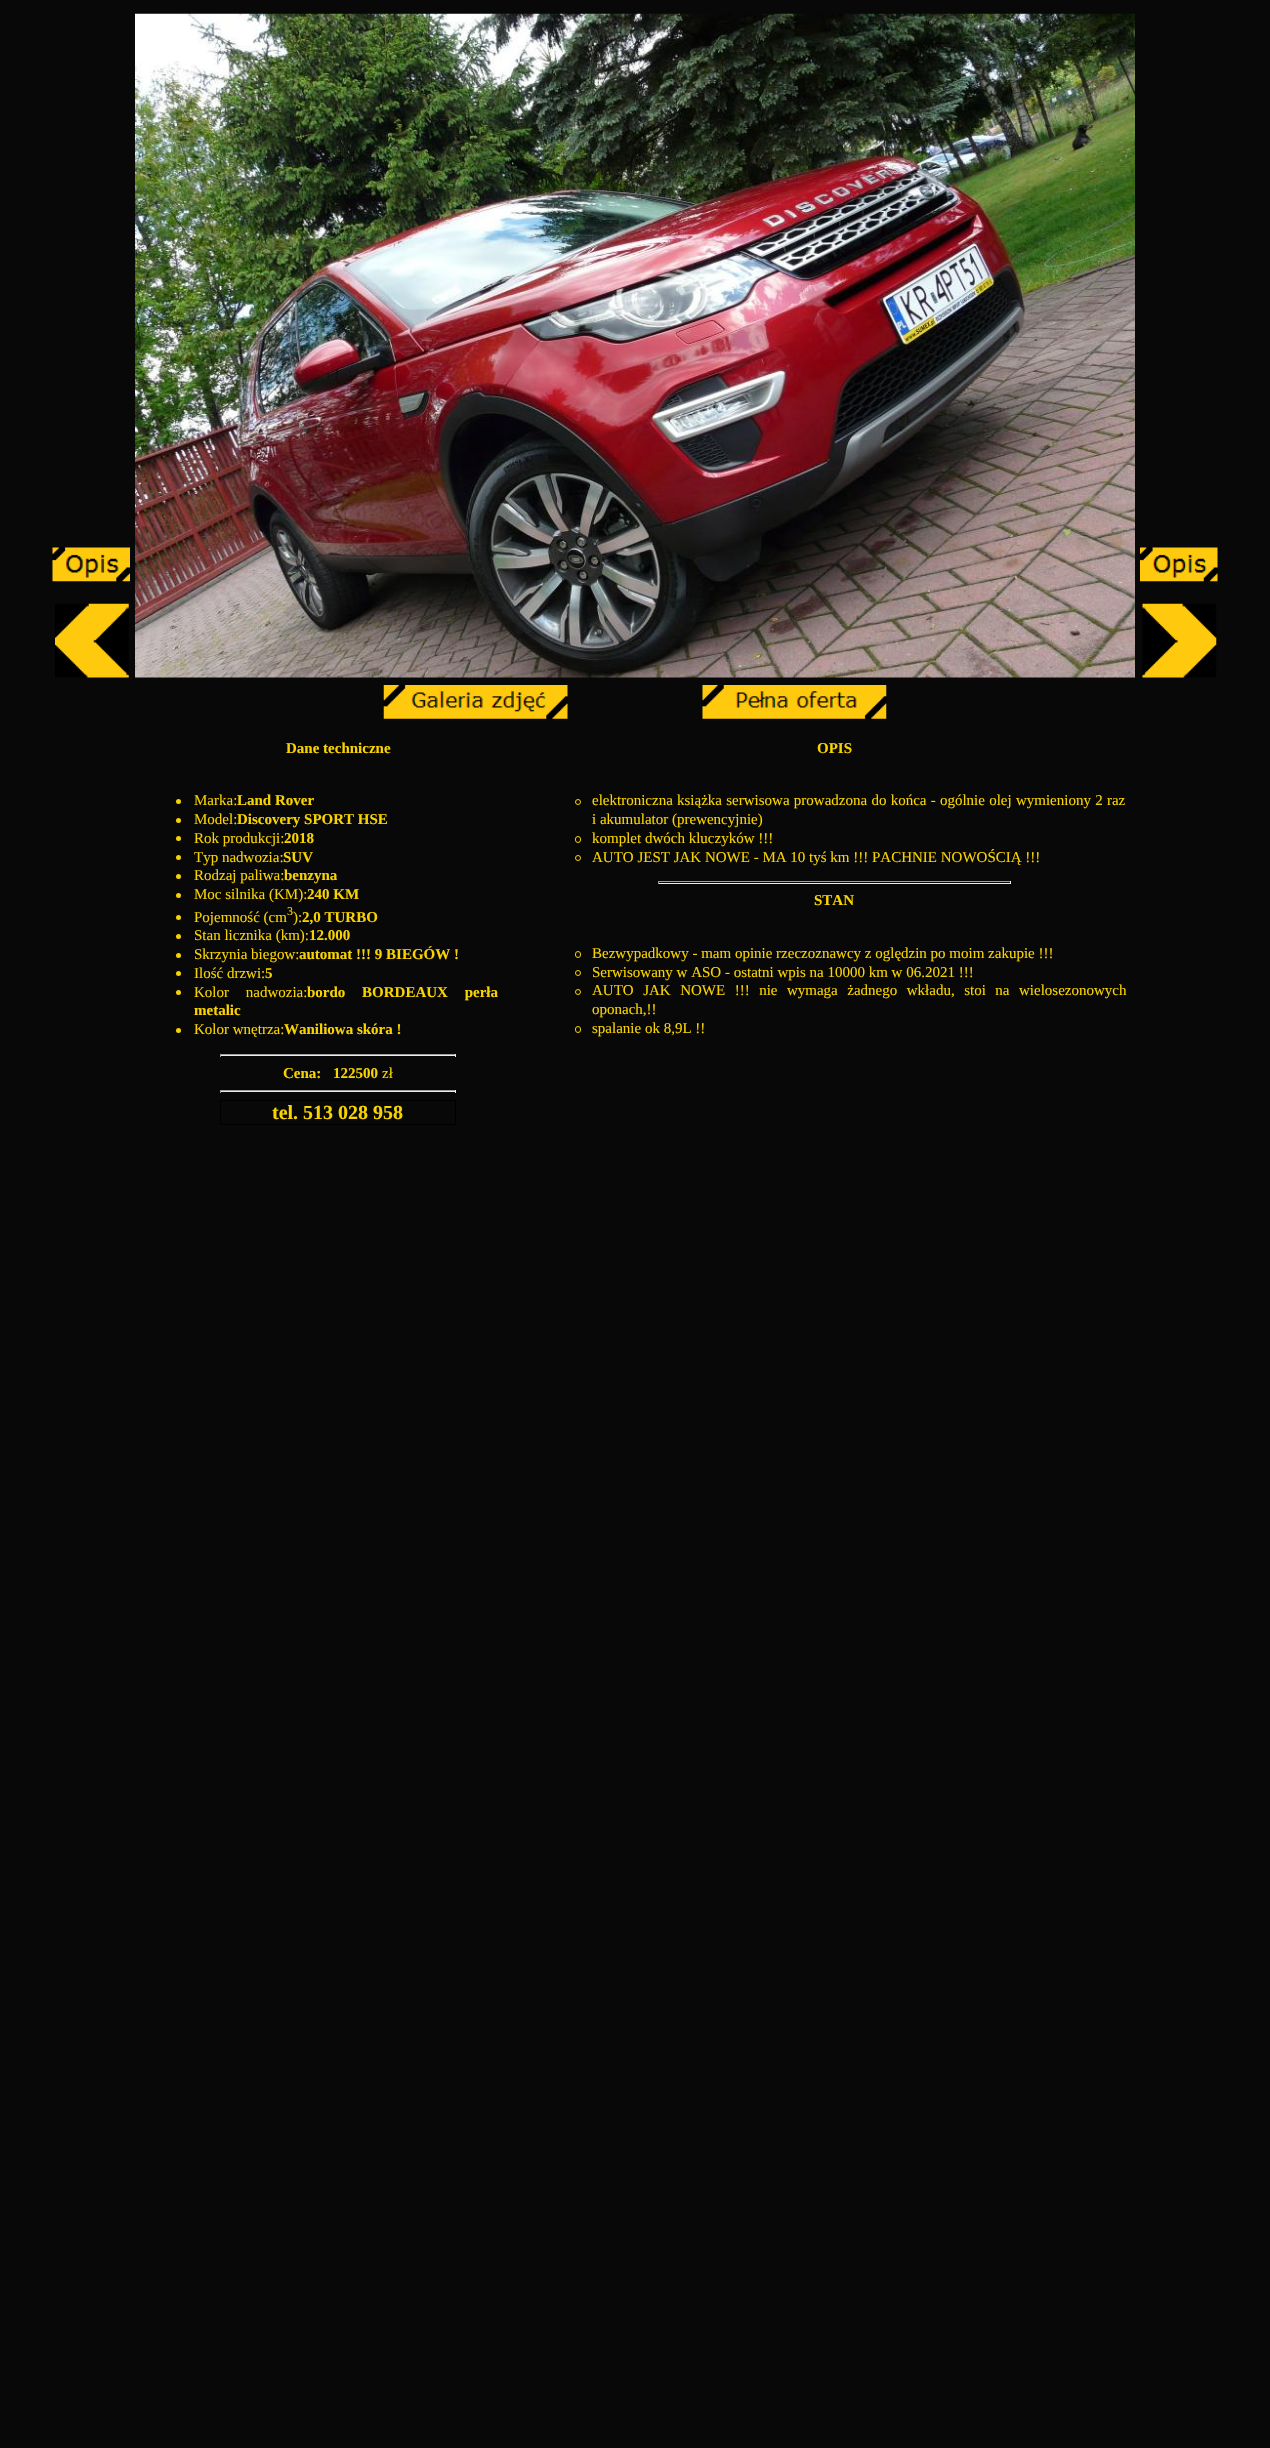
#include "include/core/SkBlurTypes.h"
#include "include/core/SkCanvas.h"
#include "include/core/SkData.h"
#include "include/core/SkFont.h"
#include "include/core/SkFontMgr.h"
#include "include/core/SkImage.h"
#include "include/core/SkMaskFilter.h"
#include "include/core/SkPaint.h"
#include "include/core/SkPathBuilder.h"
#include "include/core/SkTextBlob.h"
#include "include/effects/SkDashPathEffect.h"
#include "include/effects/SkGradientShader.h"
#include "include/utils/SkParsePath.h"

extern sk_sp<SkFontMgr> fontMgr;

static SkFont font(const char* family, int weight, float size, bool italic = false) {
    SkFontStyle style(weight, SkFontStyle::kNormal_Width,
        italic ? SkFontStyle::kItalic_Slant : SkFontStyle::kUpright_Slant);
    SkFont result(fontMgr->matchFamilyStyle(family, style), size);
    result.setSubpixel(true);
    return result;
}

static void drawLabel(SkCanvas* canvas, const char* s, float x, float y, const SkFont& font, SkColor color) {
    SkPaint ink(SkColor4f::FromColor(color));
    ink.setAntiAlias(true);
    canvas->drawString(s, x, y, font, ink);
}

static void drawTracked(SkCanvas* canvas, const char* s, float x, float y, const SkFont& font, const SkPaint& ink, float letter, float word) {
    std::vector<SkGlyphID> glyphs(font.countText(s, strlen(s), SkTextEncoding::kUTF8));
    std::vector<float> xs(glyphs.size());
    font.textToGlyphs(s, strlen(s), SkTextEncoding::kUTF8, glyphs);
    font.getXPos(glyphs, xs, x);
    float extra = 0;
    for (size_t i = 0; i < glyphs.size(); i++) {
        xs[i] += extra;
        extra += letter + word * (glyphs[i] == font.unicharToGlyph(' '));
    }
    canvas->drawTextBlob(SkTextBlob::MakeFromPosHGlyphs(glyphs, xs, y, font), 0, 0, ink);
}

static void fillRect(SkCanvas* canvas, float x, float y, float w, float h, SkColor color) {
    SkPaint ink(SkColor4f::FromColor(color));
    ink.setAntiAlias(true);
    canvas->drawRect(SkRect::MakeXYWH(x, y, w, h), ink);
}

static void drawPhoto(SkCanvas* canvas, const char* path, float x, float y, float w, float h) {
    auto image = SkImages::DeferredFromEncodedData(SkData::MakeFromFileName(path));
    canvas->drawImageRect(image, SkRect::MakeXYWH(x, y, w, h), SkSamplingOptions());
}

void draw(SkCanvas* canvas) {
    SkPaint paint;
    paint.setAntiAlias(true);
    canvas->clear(0xFF080808);
    drawPhoto(canvas, "assets/img1.png", 52, 547, 78, 35);
    drawPhoto(canvas, "assets/img2.png", 55, 603, 74, 75);
    drawPhoto(canvas, "assets/img3.png", 135, 13, 1000, 665);
    drawPhoto(canvas, "assets/img4.png", 1140, 547, 78, 35);
    drawPhoto(canvas, "assets/img5.png", 1142, 603, 75, 75);
    drawPhoto(canvas, "assets/img6.png", 383, 685, 185, 34);
    drawPhoto(canvas, "assets/img7.png", 702, 685, 185, 34);
    SkFont font1 = font("Liberation Serif", 700, 15);
    drawLabel(canvas, "Dane techniczne", 286, 753, font1, 0xFFF8D300);
    paint.setColor(0xFFF8D300);
    canvas->drawCircle(178.5f, 801.5f, 2.5f, paint);
    SkFont font2 = font("Liberation Serif", 400, 15);
    drawLabel(canvas, "Marka:", 194, 805, font2, 0xFFF8D300);
    drawLabel(canvas, "Land Rover", 237, 805, font1, 0xFFF8D300);
    canvas->drawCircle(178.5f, 820.5f, 2.5f, paint);
    drawLabel(canvas, "Model:", 194, 824, font2, 0xFFF8D300);
    drawLabel(canvas, "Discovery SPORT HSE", 237, 824, font1, 0xFFF8D300);
    canvas->drawCircle(178.5f, 838.5f, 2.5f, paint);
    drawLabel(canvas, "Rok produkcji:", 194, 843, font2, 0xFFF8D300);
    drawLabel(canvas, "2018", 284, 843, font1, 0xFFF8D300);
    canvas->drawCircle(178.5f, 857.5f, 2.5f, paint);
    drawLabel(canvas, "Typ nadwozia:", 194, 862, font2, 0xFFF8D300);
    drawLabel(canvas, "SUV", 283, 862, font1, 0xFFF8D300);
    canvas->drawCircle(178.5f, 876.5f, 2.5f, paint);
    drawLabel(canvas, "Rodzaj paliwa:", 194, 880, font2, 0xFFF8D300);
    drawLabel(canvas, "benzyna", 284, 880, font1, 0xFFF8D300);
    canvas->drawCircle(178.5f, 895.5f, 2.5f, paint);
    drawLabel(canvas, "Moc silnika (KM):", 194, 899, font2, 0xFFF8D300);
    drawLabel(canvas, "240 KM", 307, 899, font1, 0xFFF8D300);
    canvas->drawCircle(178.5f, 917.5f, 2.5f, paint);
    drawLabel(canvas, "Pojemność (cm", 194, 922, font2, 0xFFF8D300);
    SkFont font3 = font("Liberation Serif", 400, 12);
    drawLabel(canvas, "3", 287, 915, font3, 0xFFF8D300);
    drawLabel(canvas, "):", 293, 922, font2, 0xFFF8D300);
    drawLabel(canvas, "2,0 TURBO", 302, 922, font1, 0xFFF8D300);
    canvas->drawCircle(178.5f, 936.5f, 2.5f, paint);
    drawLabel(canvas, "Stan licznika (km):", 194, 940, font2, 0xFFF8D300);
    drawLabel(canvas, "12.000", 309, 940, font1, 0xFFF8D300);
    canvas->drawCircle(178.5f, 955.5f, 2.5f, paint);
    drawLabel(canvas, "Skrzynia biegow:", 194, 959, font2, 0xFFF8D300);
    drawLabel(canvas, "automat !!! 9 BIEGÓW !", 299, 959, font1, 0xFFF8D300);
    canvas->drawCircle(178.5f, 973.5f, 2.5f, paint);
    drawLabel(canvas, "Ilość drzwi:", 194, 978, font2, 0xFFF8D300);
    drawLabel(canvas, "5", 265, 978, font1, 0xFFF8D300);
    canvas->drawCircle(178.5f, 992.5f, 2.5f, paint);
    drawTracked(canvas, "Kolor nadwozia:", 194, 997, font2, paint, 0, 13);
    drawTracked(canvas, "bordo BORDEAUX perła", 307, 997, font1, paint, 0, 13);
    drawLabel(canvas, "metalic", 194, 1015, font1, 0xFFF8D300);
    canvas->drawCircle(178.5f, 1030.5f, 2.5f, paint);
    drawLabel(canvas, "Kolor wnętrza:", 194, 1034, font2, 0xFFF8D300);
    drawLabel(canvas, "Waniliowa skóra !", 284, 1034, font1, 0xFFF8D300);
    fillRect(canvas, 220, 1054, 236, 1, 0xFF9F9F9F);
    fillRect(canvas, 455, 1054, 1, 3, 0xFFEEEEEE);
    fillRect(canvas, 220, 1055, 236, 1, 0xFFEEEEEE);
    fillRect(canvas, 220, 1054, 1, 3, 0xFF9F9F9F);
    drawLabel(canvas, "Cena:", 283, 1078, font1, 0xFFF8D300);
    drawLabel(canvas, "122500", 333, 1078, font1, 0xFFF8D300);
    drawLabel(canvas, "zł", 382, 1078, font2, 0xFFF8D300);
    fillRect(canvas, 220, 1090, 236, 1, 0xFF9F9F9F);
    fillRect(canvas, 455, 1090, 1, 3, 0xFFEEEEEE);
    fillRect(canvas, 220, 1091, 236, 1, 0xFFEEEEEE);
    fillRect(canvas, 220, 1090, 1, 3, 0xFF9F9F9F);
    paint.setStroke(true);
    paint.setStrokeWidth(1);
    paint.setColor(0xFF000000);
    canvas->drawRect(SkRect::MakeXYWH(220.5f, 1100.5f, 235, 24), paint);
    SkFont font4 = font("Liberation Serif", 700, 20);
    drawLabel(canvas, "tel. 513 028 958", 272, 1119, font4, 0xFFF8D300);
    drawLabel(canvas, "OPIS", 817, 753, font1, 0xFFF8D300);
    paint.setColor(0xFFF8D300);
    canvas->drawCircle(578, 802, 2.5f, paint);
    paint.setStroke(false);
    drawTracked(canvas, "elektroniczna książka serwisowa prowadzona do końca - ogólnie olej wymieniony 2 raz", 592, 805, font2, paint, 0, 0.5f);
    drawLabel(canvas, "i akumulator (prewencyjnie)", 592, 824, font2, 0xFFF8D300);
    paint.setStroke(true);
    canvas->drawRoundRect(SkRect::MakeXYWH(575.5f, 836.5f, 5, 6), 2.5f, 2.5f, paint);
    drawLabel(canvas, "komplet dwóch kluczyków !!!", 592, 843, font2, 0xFFF8D300);
    canvas->drawCircle(578, 858, 2.5f, paint);
    drawLabel(canvas, "AUTO JEST JAK NOWE - MA 10 tyś km !!! PACHNIE NOWOŚCIĄ !!!", 592, 862, font2, 0xFFF8D300);
    fillRect(canvas, 658, 881, 353, 1, 0xFF9F9F9F);
    fillRect(canvas, 1010, 881, 1, 3, 0xFFEEEEEE);
    fillRect(canvas, 658, 883, 353, 1, 0xFFEEEEEE);
    fillRect(canvas, 658, 881, 1, 3, 0xFF9F9F9F);
    drawLabel(canvas, "STAN", 814, 905, font1, 0xFFF8D300);
    canvas->drawRoundRect(SkRect::MakeXYWH(575.5f, 951.5f, 5, 6), 2.5f, 2.5f, paint);
    drawLabel(canvas, "Bezwypadkowy - mam opinie rzeczoznawcy z oględzin po moim zakupie !!!", 592, 958, font2, 0xFFF8D300);
    canvas->drawCircle(578, 973, 2.5f, paint);
    drawLabel(canvas, "Serwisowany w ASO - ostatni wpis na 10000 km w 06.2021 !!!", 592, 977, font2, 0xFFF8D300);
    canvas->drawCircle(578, 992, 2.5f, paint);
    paint.setStroke(false);
    drawTracked(canvas, "AUTO JAK NOWE !!! nie wymaga żadnego wkładu, stoi na wielosezonowych", 592, 995, font2, paint, 0, 5.75f);
    drawLabel(canvas, "oponach,!!", 592, 1014, font2, 0xFFF8D300);
    paint.setStroke(true);
    canvas->drawRoundRect(SkRect::MakeXYWH(575.5f, 1026.5f, 5, 6), 2.5f, 2.5f, paint);
    drawLabel(canvas, "spalanie ok 8,9L !!", 592, 1033, font2, 0xFFF8D300);
}
